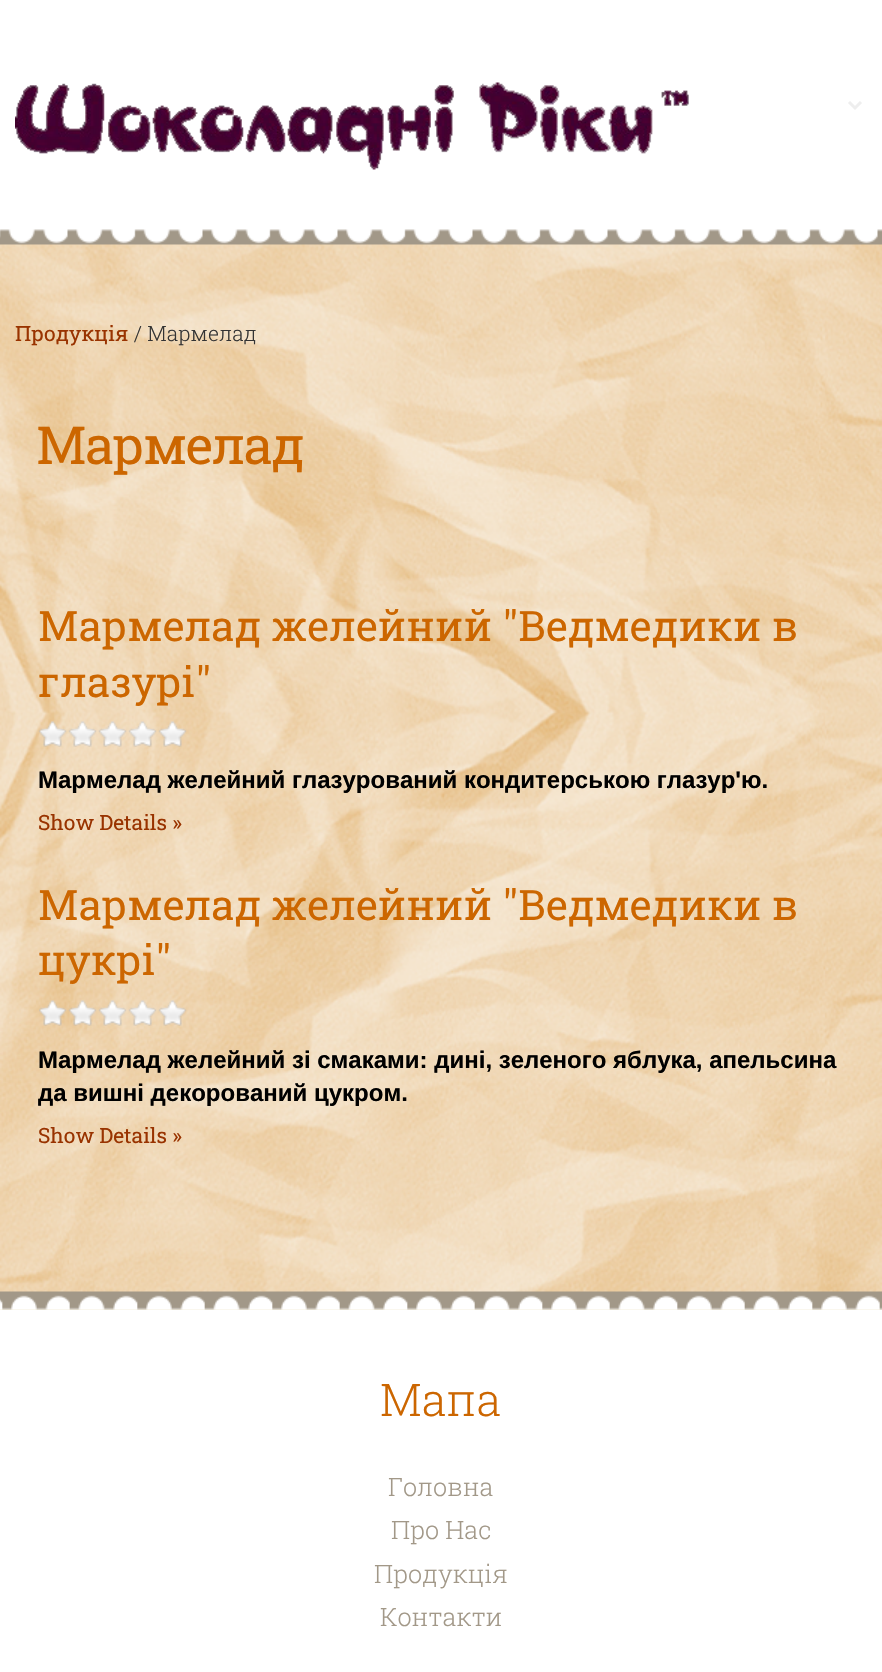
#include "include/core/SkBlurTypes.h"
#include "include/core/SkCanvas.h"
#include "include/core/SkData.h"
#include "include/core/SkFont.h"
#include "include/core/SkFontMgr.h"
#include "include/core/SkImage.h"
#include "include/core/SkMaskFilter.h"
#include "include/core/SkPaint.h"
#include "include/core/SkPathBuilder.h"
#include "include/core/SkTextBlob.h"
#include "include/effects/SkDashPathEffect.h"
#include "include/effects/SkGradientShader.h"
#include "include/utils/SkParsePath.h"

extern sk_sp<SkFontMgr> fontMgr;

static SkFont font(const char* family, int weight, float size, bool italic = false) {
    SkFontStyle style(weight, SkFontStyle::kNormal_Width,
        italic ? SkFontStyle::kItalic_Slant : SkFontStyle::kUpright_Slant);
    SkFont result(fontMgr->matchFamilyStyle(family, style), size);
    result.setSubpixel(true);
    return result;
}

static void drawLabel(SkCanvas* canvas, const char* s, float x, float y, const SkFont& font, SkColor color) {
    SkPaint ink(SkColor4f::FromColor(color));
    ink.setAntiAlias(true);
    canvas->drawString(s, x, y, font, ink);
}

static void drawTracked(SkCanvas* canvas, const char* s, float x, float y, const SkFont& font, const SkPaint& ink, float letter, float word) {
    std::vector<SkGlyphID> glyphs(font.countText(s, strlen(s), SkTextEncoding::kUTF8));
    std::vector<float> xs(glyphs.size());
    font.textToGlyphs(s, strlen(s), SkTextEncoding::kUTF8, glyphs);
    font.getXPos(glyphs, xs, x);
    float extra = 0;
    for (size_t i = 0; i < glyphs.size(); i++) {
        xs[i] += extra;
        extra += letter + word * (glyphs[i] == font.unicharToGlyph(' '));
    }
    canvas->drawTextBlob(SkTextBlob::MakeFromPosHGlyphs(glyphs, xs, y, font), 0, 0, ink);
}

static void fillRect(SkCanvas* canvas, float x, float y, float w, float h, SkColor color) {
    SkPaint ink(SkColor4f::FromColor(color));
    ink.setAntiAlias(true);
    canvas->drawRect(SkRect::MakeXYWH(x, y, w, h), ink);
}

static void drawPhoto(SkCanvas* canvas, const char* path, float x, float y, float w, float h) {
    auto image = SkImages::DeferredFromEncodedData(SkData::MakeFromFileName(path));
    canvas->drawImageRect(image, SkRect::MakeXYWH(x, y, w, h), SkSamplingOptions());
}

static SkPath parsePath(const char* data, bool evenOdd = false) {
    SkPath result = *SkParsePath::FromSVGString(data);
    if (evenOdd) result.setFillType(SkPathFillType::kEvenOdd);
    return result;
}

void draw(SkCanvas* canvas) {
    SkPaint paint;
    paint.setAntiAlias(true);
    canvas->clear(0xFFFFFFFF);
    drawPhoto(canvas, "assets/img1.png", 15, 82, 674, 88);
    paint.setStroke(true);
    paint.setStrokeWidth(3);
    paint.setColor(0xFFEEEEEE);
    canvas->drawPath(parsePath("M849 102L855 108L861 102"), paint);
    drawPhoto(canvas, "assets/img2.png", 0, 229, 882, 16);
    drawPhoto(canvas, "assets/img3.png", 0, 244, 882, 1048);
    SkFont font1 = font("Roboto Slab", 400, 21);
    drawLabel(canvas, "Продукція", 15, 341, font1, 0xFF993300);
    SkFont font2 = font("Roboto Slab", 300, 21);
    drawLabel(canvas, "/ Мармелад", 134, 341, font2, 0xFF333333);
    SkFont font3 = font("Roboto Slab", 400, 52.5f);
    paint.setStroke(false);
    paint.setColor(0xFFCC6600);
    drawTracked(canvas, "Мармелад", 36, 464, font3, paint, -1.5f, 0);
    SkFont font4 = font("Roboto Slab", 400, 42);
    drawLabel(canvas, "Мармелад желейний \"Ведмедики в", 38, 641, font4, 0xFFCC6600);
    drawLabel(canvas, "глазурі\"", 38, 697, font4, 0xFFCC6600);
    drawPhoto(canvas, "assets/img4.png", 38, 721, 149, 26);
    SkFont font5 = font("Liberation Sans", 700, 24);
    drawLabel(canvas, "Мармелад желейний глазурований кондитерською глазур'ю.", 38, 788, font5, 0xFF000000);
    drawLabel(canvas, "Show Details »", 38, 830, font1, 0xFF993300);
    drawLabel(canvas, "Мармелад желейний \"Ведмедики в", 38, 920, font4, 0xFFCC6600);
    drawLabel(canvas, "цукрі\"", 38, 975, font4, 0xFFCC6600);
    drawPhoto(canvas, "assets/img5.png", 39, 1000, 148, 26);
    drawLabel(canvas, "Мармелад желейний зі смаками: дині, зеленого яблука, апельсина", 38, 1068, font5, 0xFF000000);
    drawLabel(canvas, "да вишні декорований цукром.", 38, 1101, font5, 0xFF000000);
    drawLabel(canvas, "Show Details »", 38, 1143, font1, 0xFF993300);
    fillRect(canvas, 0, 1309, 882, 1, 0xFFF4EEDC);
    drawPhoto(canvas, "assets/img6.png", 0, 1291, 882, 19);
    SkFont font6 = font("Roboto Slab", 300, 45);
    drawLabel(canvas, "Мапа", 380, 1416, font6, 0xFFCC6600);
    SkFont font7 = font("Roboto Slab", 300, 25.25f);
    drawLabel(canvas, "Головна", 388, 1496, font7, 0xFFA29888);
    drawLabel(canvas, "Про Нас", 391, 1539, font7, 0xFFA29888);
    drawLabel(canvas, "Продукція", 374, 1583, font7, 0xFFA29888);
    drawLabel(canvas, "Контакти", 380, 1626, font7, 0xFFA29888);
}
